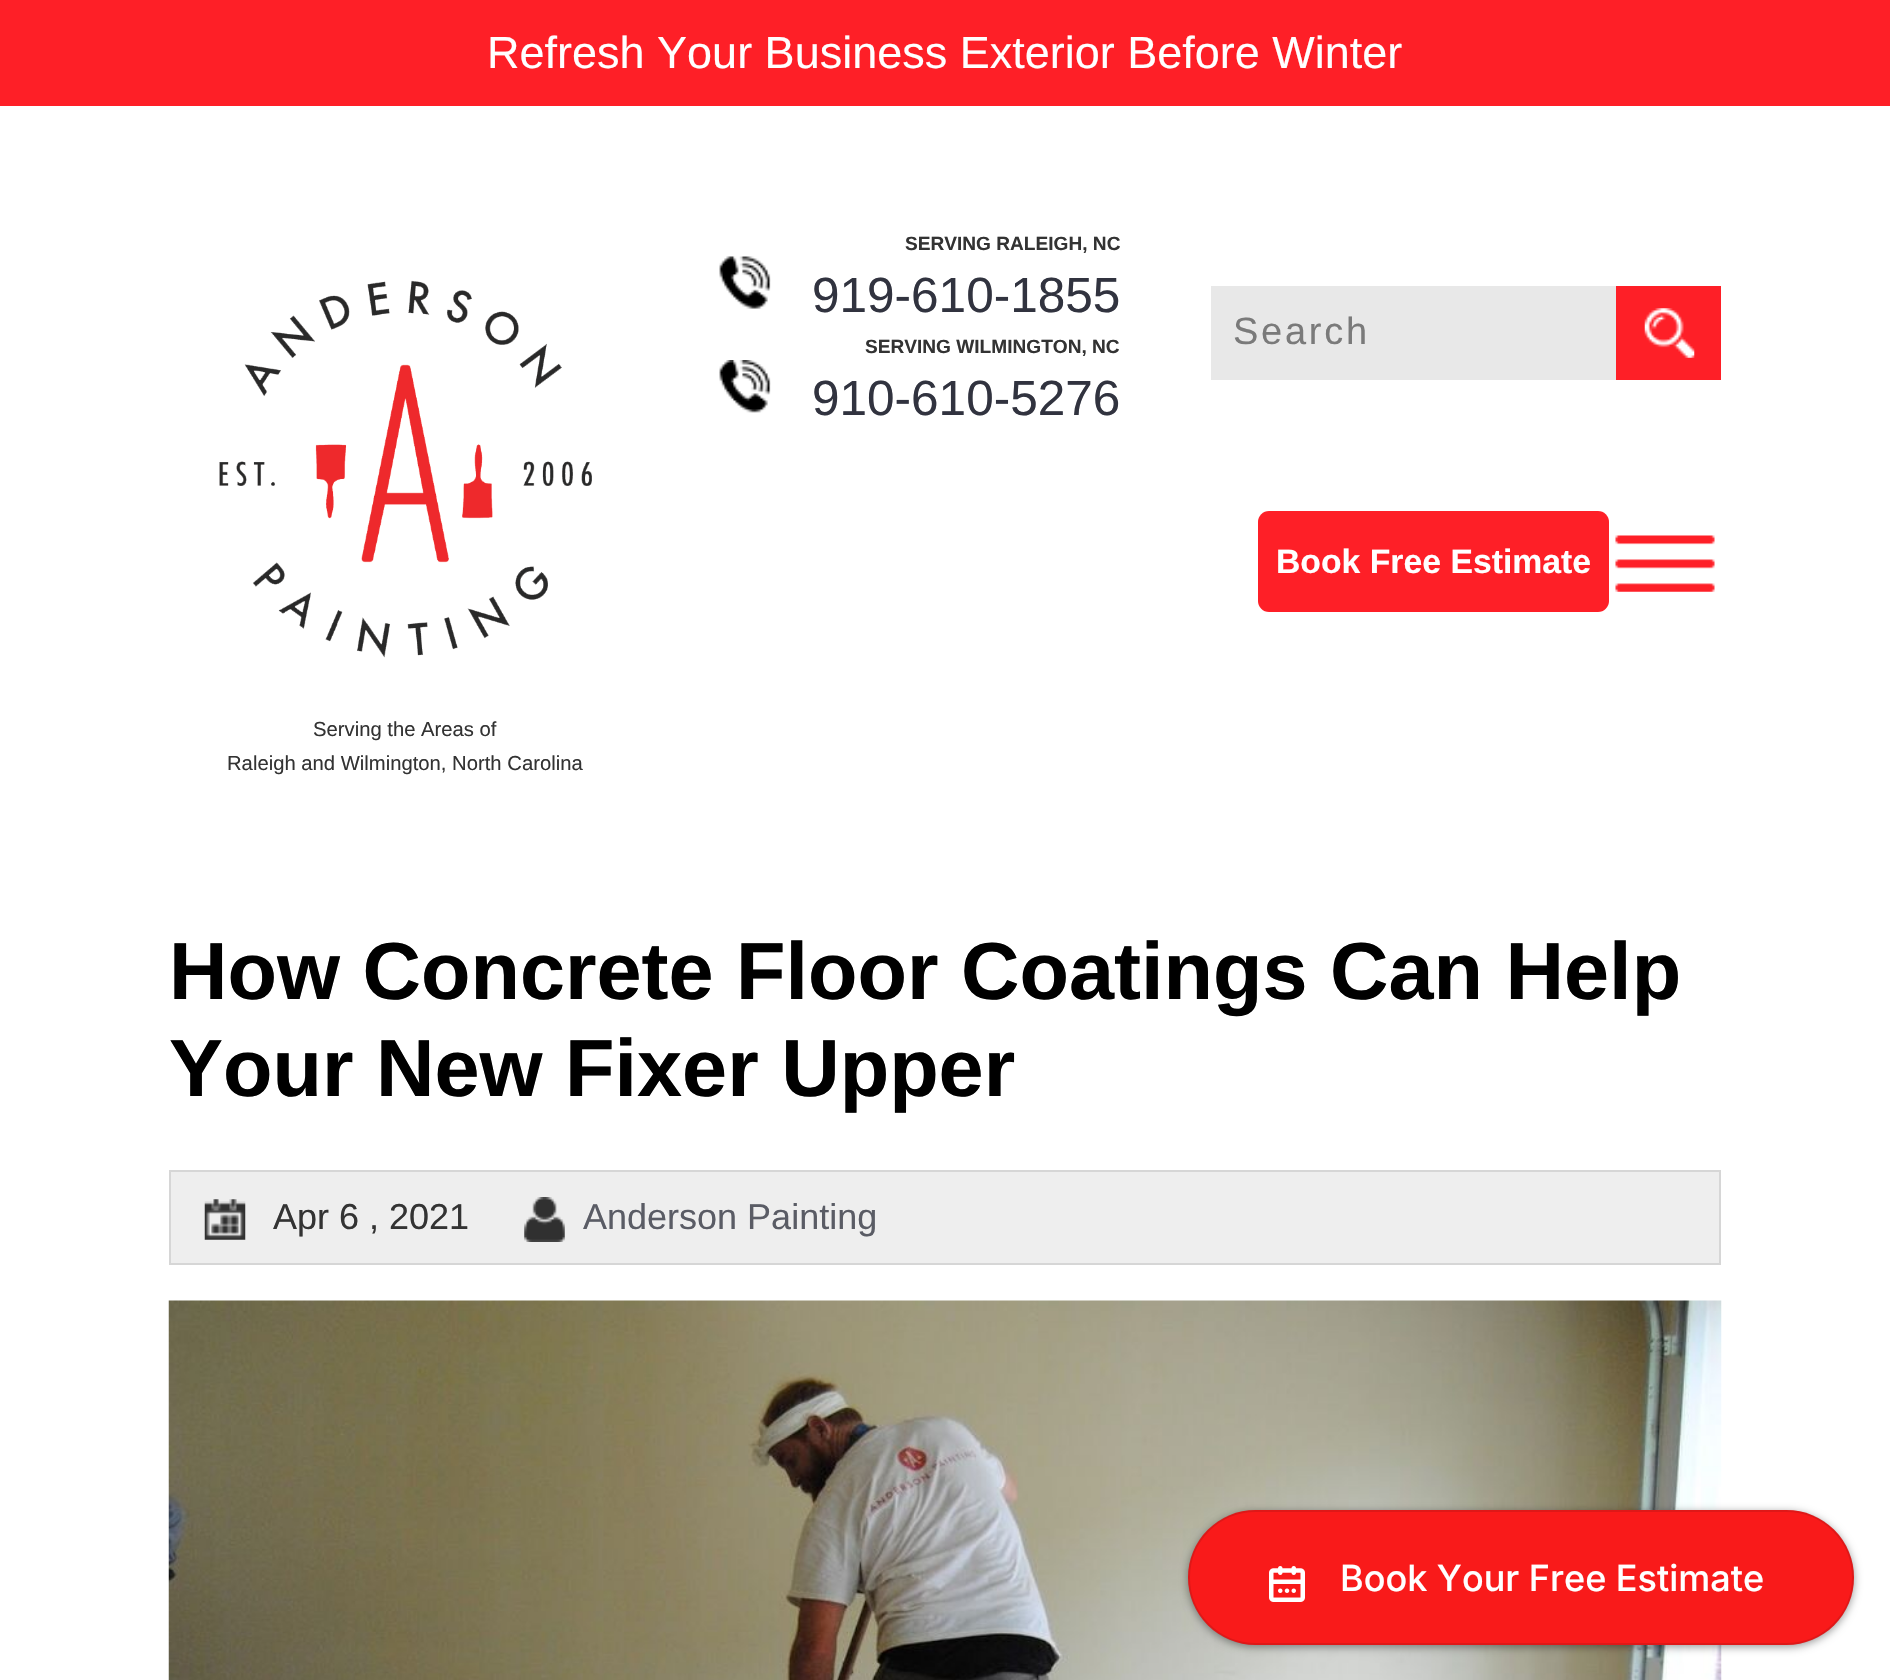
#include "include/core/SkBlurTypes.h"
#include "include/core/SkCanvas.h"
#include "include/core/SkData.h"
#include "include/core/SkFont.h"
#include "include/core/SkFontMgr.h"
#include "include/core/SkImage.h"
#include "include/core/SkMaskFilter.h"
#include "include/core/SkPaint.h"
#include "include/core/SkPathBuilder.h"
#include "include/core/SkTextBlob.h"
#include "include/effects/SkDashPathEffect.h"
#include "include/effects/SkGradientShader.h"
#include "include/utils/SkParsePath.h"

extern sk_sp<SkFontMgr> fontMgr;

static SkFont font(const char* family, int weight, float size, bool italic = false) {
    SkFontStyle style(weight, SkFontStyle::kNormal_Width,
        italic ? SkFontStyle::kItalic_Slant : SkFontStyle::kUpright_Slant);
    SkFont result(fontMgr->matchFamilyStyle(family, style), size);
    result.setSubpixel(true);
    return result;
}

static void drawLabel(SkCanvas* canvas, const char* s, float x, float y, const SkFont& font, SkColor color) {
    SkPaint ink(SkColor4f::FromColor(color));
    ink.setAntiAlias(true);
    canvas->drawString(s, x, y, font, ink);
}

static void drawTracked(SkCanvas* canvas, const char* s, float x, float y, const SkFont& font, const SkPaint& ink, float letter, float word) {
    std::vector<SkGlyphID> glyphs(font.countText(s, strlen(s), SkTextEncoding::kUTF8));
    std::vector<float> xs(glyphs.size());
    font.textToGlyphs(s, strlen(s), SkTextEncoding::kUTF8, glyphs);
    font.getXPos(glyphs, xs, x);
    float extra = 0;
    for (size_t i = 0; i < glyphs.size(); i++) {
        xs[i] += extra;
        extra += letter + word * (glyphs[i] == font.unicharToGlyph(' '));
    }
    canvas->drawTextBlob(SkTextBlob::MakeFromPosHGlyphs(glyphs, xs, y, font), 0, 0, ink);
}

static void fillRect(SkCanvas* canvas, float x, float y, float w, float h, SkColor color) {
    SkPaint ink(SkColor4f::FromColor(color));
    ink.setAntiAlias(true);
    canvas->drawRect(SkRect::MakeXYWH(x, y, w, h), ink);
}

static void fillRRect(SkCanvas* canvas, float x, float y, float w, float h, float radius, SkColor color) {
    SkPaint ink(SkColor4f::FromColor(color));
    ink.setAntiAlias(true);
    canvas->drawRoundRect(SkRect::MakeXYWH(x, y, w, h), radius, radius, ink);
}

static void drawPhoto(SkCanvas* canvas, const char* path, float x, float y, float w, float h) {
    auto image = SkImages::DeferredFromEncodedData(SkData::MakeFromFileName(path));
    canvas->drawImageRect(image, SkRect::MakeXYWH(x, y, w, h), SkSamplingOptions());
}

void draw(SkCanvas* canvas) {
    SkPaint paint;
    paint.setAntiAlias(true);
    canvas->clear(0xFFFFFFFF);
    fillRect(canvas, 0, 0, 1890, 106, 0xFFFE1F27);
    SkFont font1 = font("Liberation Sans", 400, 45);
    drawLabel(canvas, "Refresh Your Business Exterior Before Winter", 487, 68, font1, 0xFFFFFFFF);
    drawPhoto(canvas, "assets/img1.png", 719, 256, 52, 53);
    SkFont font2 = font("Liberation Sans", 700, 19.1f);
    drawLabel(canvas, "SERVING RALEIGH, NC", 905, 250, font2, 0xFF333333);
    SkFont font3 = font("Liberation Sans", 400, 49.5f);
    drawLabel(canvas, "919-610-1855", 812, 312, font3, 0xFF31333F);
    drawPhoto(canvas, "assets/img2.png", 719, 360, 52, 53);
    drawLabel(canvas, "SERVING WILMINGTON, NC", 865, 353, font2, 0xFF333333);
    drawLabel(canvas, "910-610-5276", 812, 415, font3, 0xFF31333F);
    fillRect(canvas, 1211, 286, 405, 94, 0xFFE8E8E8);
    SkFont font4 = font("Liberation Sans", 400, 38);
    paint.setColor(0xFF7A7A7A);
    drawTracked(canvas, "Search", 1233, 344, font4, paint, 2.75f, 0);
    fillRect(canvas, 1616, 286, 105, 94, 0xFFFE1F27);
    drawPhoto(canvas, "assets/img3.png", 1644, 308, 51, 50);
    fillRRect(canvas, 1258, 511, 351, 101, 11, 0xFFFE1F27);
    SkFont font5 = font("Liberation Sans", 700, 33.75f);
    drawLabel(canvas, "Book Free Estimate", 1276, 573, font5, 0xFFFFFFFF);
    drawPhoto(canvas, "assets/img4.png", 1615, 535, 100, 57);
    drawPhoto(canvas, "assets/img5.png", 219, 280, 373, 378);
    SkFont font6 = font("Liberation Sans", 400, 20.25f);
    drawLabel(canvas, "Serving the Areas of", 313, 736, font6, 0xFF333333);
    drawLabel(canvas, "Raleigh and Wilmington, North Carolina", 227, 770, font6, 0xFF333333);
    SkFont font7 = font("Liberation Sans", 700, 81);
    drawLabel(canvas, "How Concrete Floor Coatings Can Help", 169, 999, font7, 0xFF000000);
    drawLabel(canvas, "Your New Fixer Upper", 169, 1096, font7, 0xFF000000);
    paint.setColor(0xFFEEEEEE);
    canvas->drawRect(SkRect::MakeXYWH(170, 1171, 1550, 93), paint);
    paint.setStroke(true);
    paint.setStrokeWidth(2);
    paint.setColor(0xFFD6D6D6);
    canvas->drawRect(SkRect::MakeXYWH(170, 1171, 1550, 93), paint);
    drawPhoto(canvas, "assets/img6.png", 204, 1199, 42, 41);
    SkFont font8 = font("Liberation Sans", 400, 36);
    drawLabel(canvas, "Apr 6 , 2021", 273, 1229, font8, 0xFF333333);
    drawPhoto(canvas, "assets/img7.png", 524, 1197, 41, 45);
    drawLabel(canvas, "Anderson Painting", 583, 1229, font8, 0xFF5A5C65);
    drawPhoto(canvas, "assets/img8.png", 168, 1300, 1554, 380);
    paint.setStroke(false);
    paint.setColor(0x66000000);
    paint.setMaskFilter(SkMaskFilter::MakeBlur(kNormal_SkBlurStyle, 4.5f));
    canvas->drawRoundRect(SkRect::MakeXYWH(1188, 1512, 666, 135), 67.5f, 67.5f, paint);
    paint.setMaskFilter(nullptr);
    fillRRect(canvas, 1188, 1510, 666, 135, 67.5f, 0xFFF91A1A);
    paint.setStroke(true);
    paint.setColor(0x1A000000);
    canvas->drawRoundRect(SkRect::MakeXYWH(1189, 1511, 664, 133), 66.5f, 66.5f, paint);
    drawPhoto(canvas, "assets/img9.png", 1269, 1566, 36, 36);
    SkFont font9 = font("Inter", 500, 36);
    drawLabel(canvas, "Book Your Free Estimate", 1340, 1591, font9, 0xFFFFFFFF);
}
